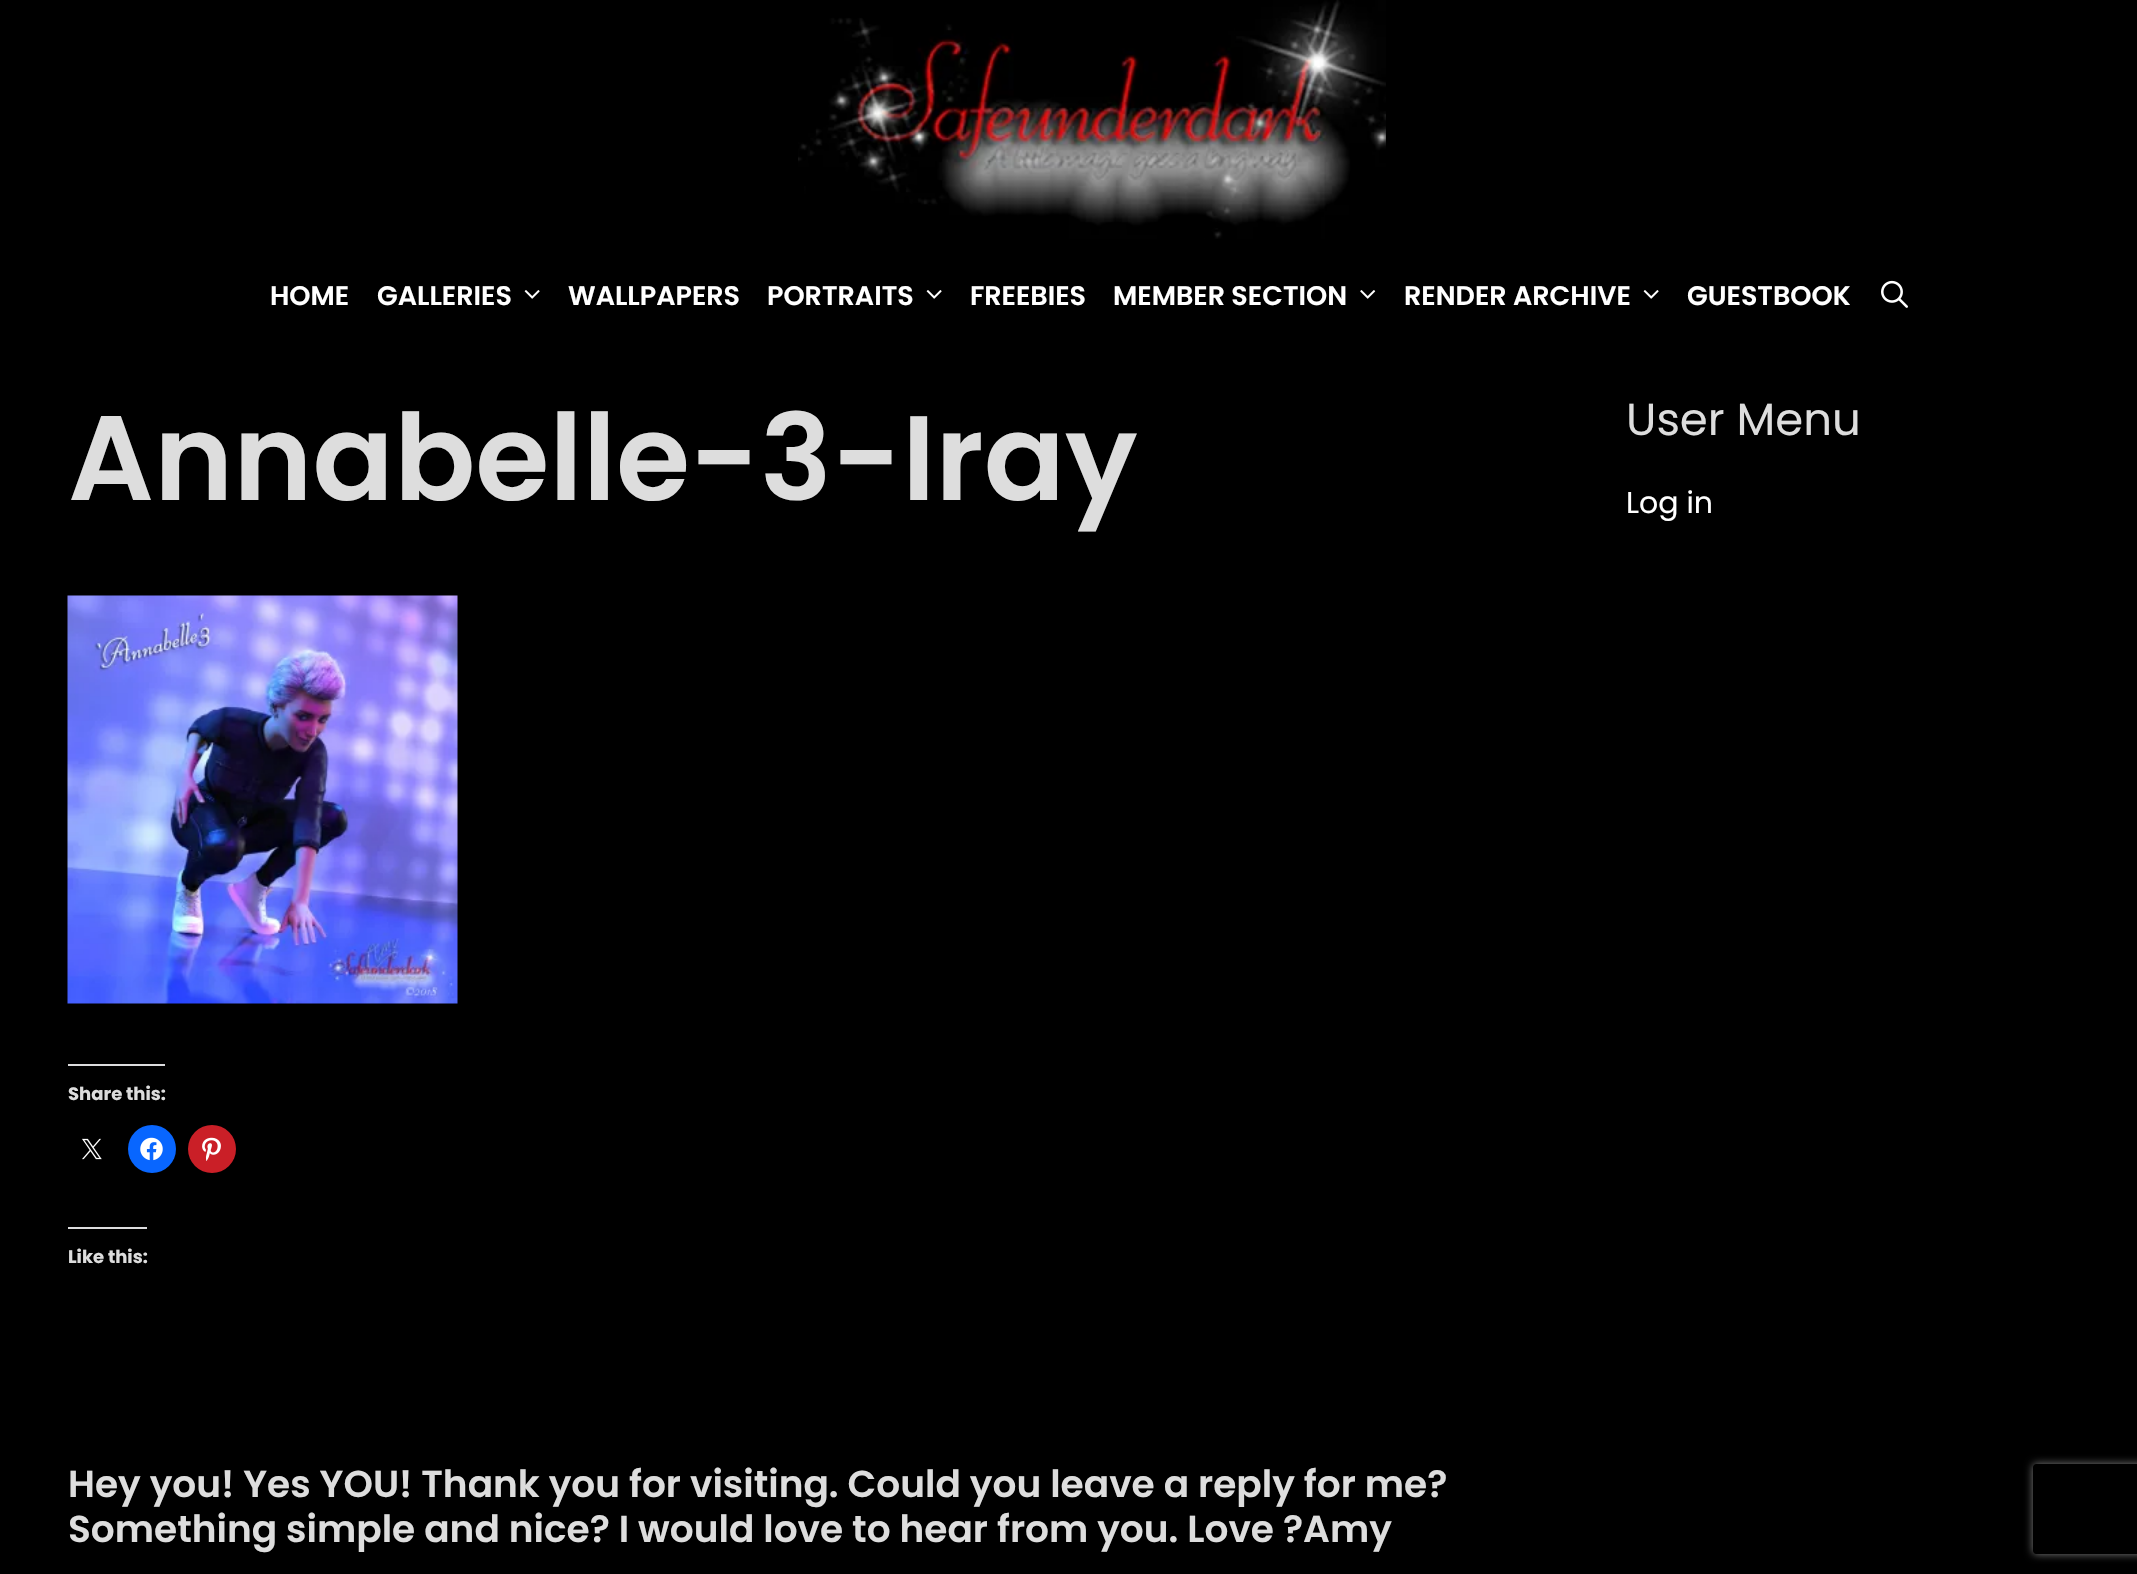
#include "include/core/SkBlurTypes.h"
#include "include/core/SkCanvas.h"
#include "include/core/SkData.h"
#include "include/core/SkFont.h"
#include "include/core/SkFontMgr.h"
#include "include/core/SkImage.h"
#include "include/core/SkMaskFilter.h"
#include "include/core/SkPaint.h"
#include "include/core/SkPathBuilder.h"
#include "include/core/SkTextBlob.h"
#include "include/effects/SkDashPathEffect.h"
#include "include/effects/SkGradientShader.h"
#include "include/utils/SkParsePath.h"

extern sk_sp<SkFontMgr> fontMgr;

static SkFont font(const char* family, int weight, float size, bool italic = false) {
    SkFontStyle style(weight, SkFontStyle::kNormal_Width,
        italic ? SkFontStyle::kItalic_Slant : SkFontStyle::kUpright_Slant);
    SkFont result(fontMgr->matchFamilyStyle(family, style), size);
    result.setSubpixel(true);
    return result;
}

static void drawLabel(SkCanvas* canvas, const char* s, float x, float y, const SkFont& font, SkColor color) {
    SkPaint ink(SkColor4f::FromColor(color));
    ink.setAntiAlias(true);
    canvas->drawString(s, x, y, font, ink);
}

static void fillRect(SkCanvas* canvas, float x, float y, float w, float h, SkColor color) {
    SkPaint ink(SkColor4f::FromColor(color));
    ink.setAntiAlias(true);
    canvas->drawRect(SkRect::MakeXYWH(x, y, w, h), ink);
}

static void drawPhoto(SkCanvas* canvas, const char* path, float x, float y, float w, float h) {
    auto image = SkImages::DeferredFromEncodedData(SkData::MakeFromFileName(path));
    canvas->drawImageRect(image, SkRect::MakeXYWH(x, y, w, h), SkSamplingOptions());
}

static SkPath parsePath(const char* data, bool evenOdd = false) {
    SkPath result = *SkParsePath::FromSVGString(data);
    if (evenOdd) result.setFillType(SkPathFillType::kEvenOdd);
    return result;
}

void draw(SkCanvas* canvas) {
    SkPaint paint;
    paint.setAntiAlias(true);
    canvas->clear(0xFF000000);
    drawPhoto(canvas, "assets/img1.png", 798, 0, 588, 239);
    SkFont font1 = font("Poppins", 600, 27);
    drawLabel(canvas, "HOME", 270, 305, font1, 0xFFFFFFFF);
    drawLabel(canvas, "GALLERIES", 377, 305, font1, 0xFFFFFFFF);
    drawPhoto(canvas, "assets/img2.png", 524, 290, 16, 9);
    drawLabel(canvas, "WALLPAPERS", 568, 305, font1, 0xFFFFFFFF);
    drawLabel(canvas, "PORTRAITS", 767, 305, font1, 0xFFFFFFFF);
    drawPhoto(canvas, "assets/img2.png", 926, 290, 16, 9);
    drawLabel(canvas, "FREEBIES", 970, 305, font1, 0xFFFFFFFF);
    drawLabel(canvas, "MEMBER SECTION", 1113, 305, font1, 0xFFFFFFFF);
    drawPhoto(canvas, "assets/img3.png", 1360, 290, 16, 9);
    drawLabel(canvas, "RENDER ARCHIVE", 1404, 305, font1, 0xFFFFFFFF);
    drawPhoto(canvas, "assets/img2.png", 1643, 290, 16, 9);
    drawLabel(canvas, "GUESTBOOK", 1687, 305, font1, 0xFFFFFFFF);
    drawPhoto(canvas, "assets/img4.png", 1881, 280, 27, 28);
    SkFont font2 = font("Poppins", 600, 120);
    drawLabel(canvas, "Annabelle-3-Iray", 68, 500, font2, 0xFFDDDDDD);
    drawPhoto(canvas, "assets/img5.png", 67, 595, 391, 409);
    fillRect(canvas, 68, 1064, 97, 2, 0xFFDCDCDE);
    SkFont font3 = font("Poppins", 700, 18);
    drawLabel(canvas, "Share this:", 68, 1100, font3, 0xFFDDDDDD);
    drawPhoto(canvas, "assets/img6.png", 82, 1138, 20, 22);
    paint.setColor(0xFF0866FF);
    canvas->drawCircle(152, 1149, 24, paint);
    drawPhoto(canvas, "assets/img7.png", 140, 1137, 23, 24);
    paint.setColor(0xFFCA1F27);
    canvas->drawCircle(212, 1149, 24, paint);
    drawPhoto(canvas, "assets/img8.png", 202, 1137, 19, 24);
    fillRect(canvas, 68, 1227, 79, 2, 0xFFDCDCDE);
    drawLabel(canvas, "Like this:", 68, 1263, font3, 0xFFDDDDDD);
    SkFont font4 = font("Poppins", 600, 37.5f);
    drawLabel(canvas, "Hey you! Yes YOU! Thank you for visiting. Could you leave a reply for me?", 68, 1497, font4, 0xFFDDDDDD);
    drawLabel(canvas, "Something simple and nice? I would love to hear from you. Love ?Amy", 68, 1542, font4, 0xFFDDDDDD);
    SkFont font5 = font("Poppins", 400, 45);
    drawLabel(canvas, "User Menu", 1626, 435, font5, 0xFFDDDDDD);
    SkFont font6 = font("Poppins", 400, 30);
    drawLabel(canvas, "Log in", 1626, 513, font6, 0xFFFFFFFF);
    canvas->save();
    canvas->clipPath(parsePath("M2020 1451H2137V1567H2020ZM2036 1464H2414C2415.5 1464 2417 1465.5 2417 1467V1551C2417 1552.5 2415.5 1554 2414 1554H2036C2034.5 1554 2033 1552.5 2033 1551V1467C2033 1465.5 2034.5 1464 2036 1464Z", true), true);
    paint.setColor(0xFF808080);
    paint.setMaskFilter(SkMaskFilter::MakeBlur(kNormal_SkBlurStyle, 4));
    canvas->drawRoundRect(SkRect::MakeXYWH(2033, 1464, 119, 90), 3, 3, paint);
    paint.setMaskFilter(nullptr);
    canvas->restore();
}
